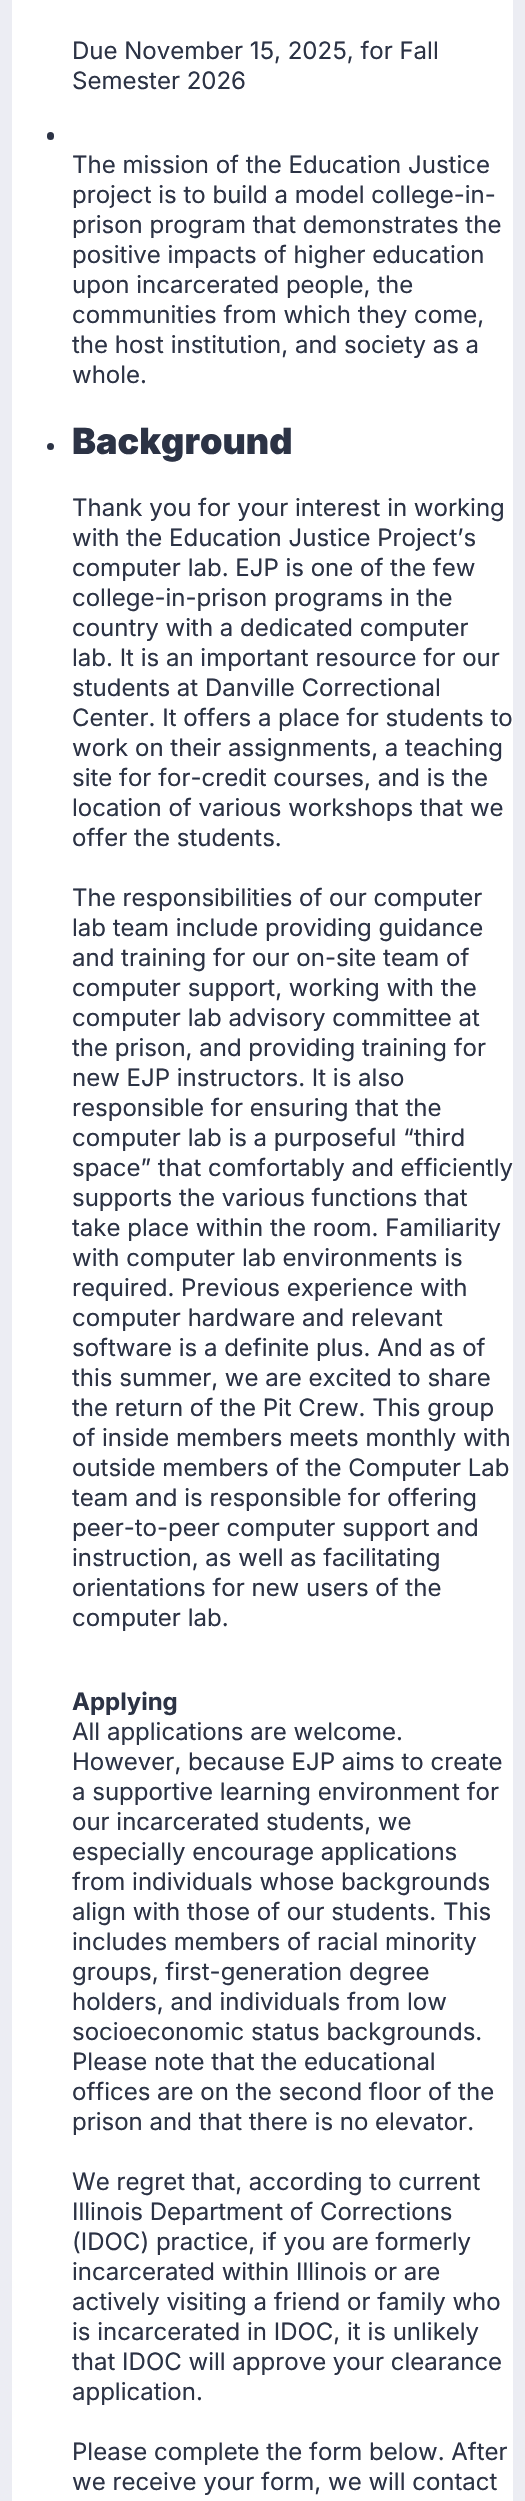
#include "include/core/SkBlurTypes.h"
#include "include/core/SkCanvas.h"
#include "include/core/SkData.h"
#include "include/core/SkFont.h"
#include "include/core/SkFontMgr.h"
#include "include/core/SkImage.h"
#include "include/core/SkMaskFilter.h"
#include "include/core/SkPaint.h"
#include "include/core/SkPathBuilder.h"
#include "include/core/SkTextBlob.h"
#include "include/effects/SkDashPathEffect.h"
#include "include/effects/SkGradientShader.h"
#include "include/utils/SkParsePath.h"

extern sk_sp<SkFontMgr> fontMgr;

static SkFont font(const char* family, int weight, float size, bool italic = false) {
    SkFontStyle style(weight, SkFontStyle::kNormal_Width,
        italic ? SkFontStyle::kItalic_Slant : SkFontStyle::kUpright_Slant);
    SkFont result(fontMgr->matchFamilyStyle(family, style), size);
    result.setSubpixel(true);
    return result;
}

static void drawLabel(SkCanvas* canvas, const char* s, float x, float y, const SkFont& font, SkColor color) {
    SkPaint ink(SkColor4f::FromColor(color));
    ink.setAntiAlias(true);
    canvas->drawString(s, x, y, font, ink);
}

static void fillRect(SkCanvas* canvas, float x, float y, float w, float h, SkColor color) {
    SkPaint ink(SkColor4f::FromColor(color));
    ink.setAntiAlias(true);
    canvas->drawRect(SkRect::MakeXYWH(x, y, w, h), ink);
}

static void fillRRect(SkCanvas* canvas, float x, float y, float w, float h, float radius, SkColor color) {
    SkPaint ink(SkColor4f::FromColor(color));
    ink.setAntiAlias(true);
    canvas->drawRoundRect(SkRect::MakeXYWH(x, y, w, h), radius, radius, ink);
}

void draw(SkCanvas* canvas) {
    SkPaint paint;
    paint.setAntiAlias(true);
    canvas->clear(0xFFECEDF3);
    fillRect(canvas, 12, 0, 501, 2501, 0xFFFFFFFF);
    SkFont font1 = font("Inter", 400, 24);
    drawLabel(canvas, "Due November 15, 2025, for Fall", 72, 59, font1, 0xFF2C3345);
    drawLabel(canvas, "Semester 2026", 72, 89, font1, 0xFF2C3345);
    fillRRect(canvas, 47, 132, 7, 8, 3.5f, 0xFF2C3345);
    drawLabel(canvas, "The mission of the Education Justice", 72, 173, font1, 0xFF2C3345);
    drawLabel(canvas, "project is to build a model college-in-", 72, 203, font1, 0xFF2C3345);
    drawLabel(canvas, "prison program that demonstrates the", 72, 233, font1, 0xFF2C3345);
    drawLabel(canvas, "positive impacts of higher education", 72, 263, font1, 0xFF2C3345);
    drawLabel(canvas, "upon incarcerated people, the", 72, 293, font1, 0xFF2C3345);
    drawLabel(canvas, "communities from which they come,", 72, 323, font1, 0xFF2C3345);
    drawLabel(canvas, "the host institution, and society as a", 72, 353, font1, 0xFF2C3345);
    drawLabel(canvas, "whole.", 72, 383, font1, 0xFF2C3345);
    paint.setColor(0xFF2C3345);
    canvas->drawCircle(50.5f, 446.5f, 3.5f, paint);
    SkFont font2 = font("Inter", 900, 36);
    drawLabel(canvas, "Background", 72, 454, font2, 0xFF2C3345);
    drawLabel(canvas, "Thank you for your interest in working", 72, 516, font1, 0xFF2C3345);
    drawLabel(canvas, "with the Education Justice Project’s", 72, 546, font1, 0xFF2C3345);
    drawLabel(canvas, "computer lab. EJP is one of the few", 72, 576, font1, 0xFF2C3345);
    drawLabel(canvas, "college-in-prison programs in the", 72, 606, font1, 0xFF2C3345);
    drawLabel(canvas, "country with a dedicated computer", 72, 636, font1, 0xFF2C3345);
    drawLabel(canvas, "lab. It is an important resource for our", 72, 666, font1, 0xFF2C3345);
    drawLabel(canvas, "students at Danville Correctional", 72, 696, font1, 0xFF2C3345);
    drawLabel(canvas, "Center. It offers a place for students to", 72, 726, font1, 0xFF2C3345);
    drawLabel(canvas, "work on their assignments, a teaching", 72, 756, font1, 0xFF2C3345);
    drawLabel(canvas, "site for for-credit courses, and is the", 72, 786, font1, 0xFF2C3345);
    drawLabel(canvas, "location of various workshops that we", 72, 816, font1, 0xFF2C3345);
    drawLabel(canvas, "offer the students.", 72, 846, font1, 0xFF2C3345);
    drawLabel(canvas, "The responsibilities of our computer", 72, 906, font1, 0xFF2C3345);
    drawLabel(canvas, "lab team include providing guidance", 72, 936, font1, 0xFF2C3345);
    drawLabel(canvas, "and training for our on-site team of", 72, 966, font1, 0xFF2C3345);
    drawLabel(canvas, "computer support, working with the", 72, 996, font1, 0xFF2C3345);
    drawLabel(canvas, "computer lab advisory committee at", 72, 1026, font1, 0xFF2C3345);
    drawLabel(canvas, "the prison, and providing training for", 72, 1056, font1, 0xFF2C3345);
    drawLabel(canvas, "new EJP instructors. It is also", 72, 1086, font1, 0xFF2C3345);
    drawLabel(canvas, "responsible for ensuring that the", 72, 1116, font1, 0xFF2C3345);
    drawLabel(canvas, "computer lab is a purposeful “third", 72, 1146, font1, 0xFF2C3345);
    drawLabel(canvas, "space” that comfortably and efficiently", 72, 1176, font1, 0xFF2C3345);
    drawLabel(canvas, "supports the various functions that", 72, 1206, font1, 0xFF2C3345);
    drawLabel(canvas, "take place within the room. Familiarity", 72, 1236, font1, 0xFF2C3345);
    drawLabel(canvas, "with computer lab environments is", 72, 1266, font1, 0xFF2C3345);
    drawLabel(canvas, "required. Previous experience with", 72, 1296, font1, 0xFF2C3345);
    drawLabel(canvas, "computer hardware and relevant", 72, 1326, font1, 0xFF2C3345);
    drawLabel(canvas, "software is a definite plus. And as of", 72, 1356, font1, 0xFF2C3345);
    drawLabel(canvas, "this summer, we are excited to share", 72, 1386, font1, 0xFF2C3345);
    drawLabel(canvas, "the return of the Pit Crew. This group", 72, 1416, font1, 0xFF2C3345);
    drawLabel(canvas, "of inside members meets monthly with", 72, 1446, font1, 0xFF2C3345);
    drawLabel(canvas, "outside members of the Computer Lab", 72, 1476, font1, 0xFF2C3345);
    drawLabel(canvas, "team and is responsible for offering", 72, 1506, font1, 0xFF2C3345);
    drawLabel(canvas, "peer-to-peer computer support and", 72, 1536, font1, 0xFF2C3345);
    drawLabel(canvas, "instruction, as well as facilitating", 72, 1566, font1, 0xFF2C3345);
    drawLabel(canvas, "orientations for new users of the", 72, 1596, font1, 0xFF2C3345);
    drawLabel(canvas, "computer lab.", 72, 1626, font1, 0xFF2C3345);
    SkFont font3 = font("Inter", 700, 24);
    drawLabel(canvas, "Applying", 72, 1710, font3, 0xFF2C3345);
    drawLabel(canvas, "All applications are welcome.", 72, 1740, font1, 0xFF2C3345);
    drawLabel(canvas, "However, because EJP aims to create", 72, 1770, font1, 0xFF2C3345);
    drawLabel(canvas, "a supportive learning environment for", 72, 1800, font1, 0xFF2C3345);
    drawLabel(canvas, "our incarcerated students, we", 72, 1830, font1, 0xFF2C3345);
    drawLabel(canvas, "especially encourage applications", 72, 1860, font1, 0xFF2C3345);
    drawLabel(canvas, "from individuals whose backgrounds", 72, 1890, font1, 0xFF2C3345);
    drawLabel(canvas, "align with those of our students. This", 72, 1920, font1, 0xFF2C3345);
    drawLabel(canvas, "includes members of racial minority", 72, 1950, font1, 0xFF2C3345);
    drawLabel(canvas, "groups, first-generation degree", 72, 1980, font1, 0xFF2C3345);
    drawLabel(canvas, "holders, and individuals from low", 72, 2010, font1, 0xFF2C3345);
    drawLabel(canvas, "socioeconomic status backgrounds.", 72, 2040, font1, 0xFF2C3345);
    drawLabel(canvas, "Please note that the educational", 72, 2070, font1, 0xFF2C3345);
    drawLabel(canvas, "offices are on the second floor of the", 72, 2100, font1, 0xFF2C3345);
    drawLabel(canvas, "prison and that there is no elevator.", 72, 2130, font1, 0xFF2C3345);
    drawLabel(canvas, "We regret that, according to current", 72, 2190, font1, 0xFF2C3345);
    drawLabel(canvas, "Illinois Department of Corrections", 72, 2220, font1, 0xFF2C3345);
    drawLabel(canvas, "(IDOC) practice, if you are formerly", 72, 2250, font1, 0xFF2C3345);
    drawLabel(canvas, "incarcerated within Illinois or are", 72, 2280, font1, 0xFF2C3345);
    drawLabel(canvas, "actively visiting a friend or family who", 72, 2310, font1, 0xFF2C3345);
    drawLabel(canvas, "is incarcerated in IDOC, it is unlikely", 72, 2340, font1, 0xFF2C3345);
    drawLabel(canvas, "that IDOC will approve your clearance", 72, 2370, font1, 0xFF2C3345);
    drawLabel(canvas, "application.", 72, 2400, font1, 0xFF2C3345);
    drawLabel(canvas, "Please complete the form below. After", 72, 2460, font1, 0xFF2C3345);
    drawLabel(canvas, "we receive your form, we will contact", 72, 2490, font1, 0xFF2C3345);
}
